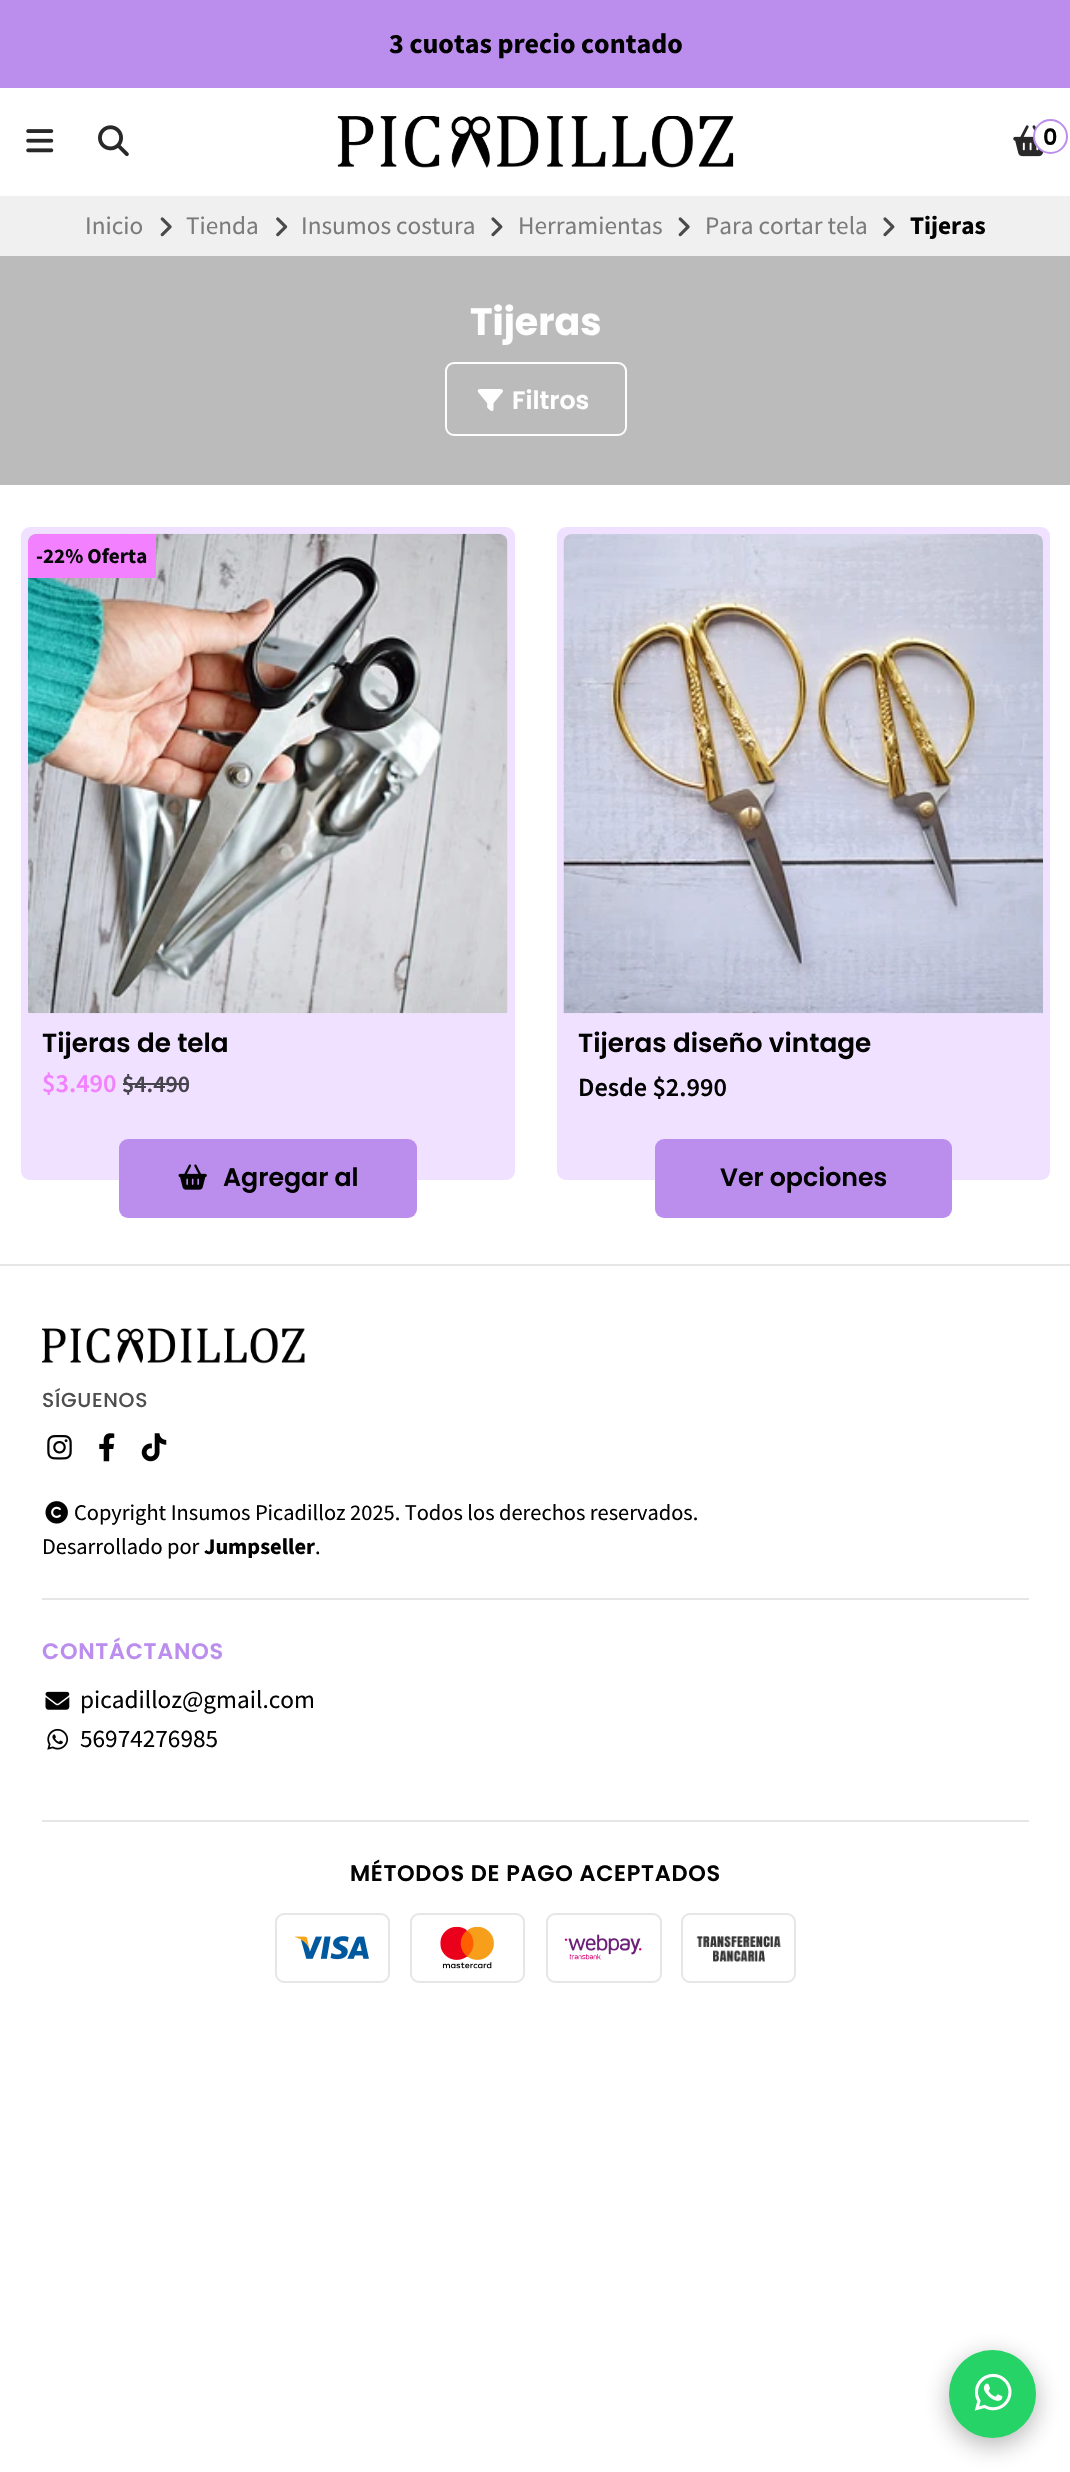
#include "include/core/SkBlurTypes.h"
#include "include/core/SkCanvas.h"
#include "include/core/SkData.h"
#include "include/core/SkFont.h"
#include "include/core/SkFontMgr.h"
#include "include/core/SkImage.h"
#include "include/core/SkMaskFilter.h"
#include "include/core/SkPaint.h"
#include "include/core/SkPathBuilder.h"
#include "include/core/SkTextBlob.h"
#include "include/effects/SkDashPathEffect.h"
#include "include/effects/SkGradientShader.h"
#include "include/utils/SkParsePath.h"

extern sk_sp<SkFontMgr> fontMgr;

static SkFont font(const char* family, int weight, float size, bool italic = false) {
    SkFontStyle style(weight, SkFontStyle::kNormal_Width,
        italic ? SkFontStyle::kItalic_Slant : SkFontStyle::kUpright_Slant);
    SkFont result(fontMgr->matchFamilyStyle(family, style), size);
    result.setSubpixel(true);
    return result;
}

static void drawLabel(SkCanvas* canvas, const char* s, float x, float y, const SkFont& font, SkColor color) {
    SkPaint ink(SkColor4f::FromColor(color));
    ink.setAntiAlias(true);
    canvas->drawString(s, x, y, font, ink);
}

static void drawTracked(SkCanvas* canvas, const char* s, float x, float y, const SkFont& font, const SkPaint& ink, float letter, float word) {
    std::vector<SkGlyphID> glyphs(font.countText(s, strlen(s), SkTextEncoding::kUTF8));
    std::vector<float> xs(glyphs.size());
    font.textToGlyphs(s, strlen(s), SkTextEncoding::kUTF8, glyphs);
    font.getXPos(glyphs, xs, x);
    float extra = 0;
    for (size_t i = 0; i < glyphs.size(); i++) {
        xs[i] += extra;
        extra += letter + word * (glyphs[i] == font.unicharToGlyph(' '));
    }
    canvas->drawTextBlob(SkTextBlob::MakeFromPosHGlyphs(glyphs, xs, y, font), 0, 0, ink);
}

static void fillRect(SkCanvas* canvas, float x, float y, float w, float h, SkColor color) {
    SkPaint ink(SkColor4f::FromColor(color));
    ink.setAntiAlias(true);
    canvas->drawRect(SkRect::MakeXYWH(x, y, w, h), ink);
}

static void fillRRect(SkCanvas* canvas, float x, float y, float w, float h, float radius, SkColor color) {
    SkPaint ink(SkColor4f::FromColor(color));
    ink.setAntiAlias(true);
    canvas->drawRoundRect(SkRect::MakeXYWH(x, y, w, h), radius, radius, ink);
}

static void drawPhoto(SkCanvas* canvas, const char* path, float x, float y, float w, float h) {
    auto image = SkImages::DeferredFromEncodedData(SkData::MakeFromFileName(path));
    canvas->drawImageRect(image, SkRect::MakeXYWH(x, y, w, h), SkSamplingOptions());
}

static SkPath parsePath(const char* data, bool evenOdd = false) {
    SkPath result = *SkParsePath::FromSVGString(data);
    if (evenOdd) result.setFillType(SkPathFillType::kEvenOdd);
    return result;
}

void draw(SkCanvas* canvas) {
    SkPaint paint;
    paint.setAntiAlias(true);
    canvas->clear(0xFFFFFFFF);
    fillRect(canvas, 0, 0, 1070, 88, 0xFFBB8EEE);
    SkFont font1 = font("Source Sans Pro", 700, 28);
    drawLabel(canvas, "3 cuotas precio contado", 389, 53, font1, 0xFF020202);
    drawPhoto(canvas, "assets/img1.png", 26, 129, 28, 24);
    drawPhoto(canvas, "assets/img2.png", 98, 125, 31, 32);
    drawPhoto(canvas, "assets/img3.png", 337, 116, 397, 52);
    drawPhoto(canvas, "assets/img4.png", 1013, 125, 31, 32);
    paint.setColor(0xFFFFFFFF);
    canvas->drawCircle(1050.5f, 136.5f, 16.5f, paint);
    paint.setStroke(true);
    paint.setStrokeWidth(2);
    paint.setColor(0xFFBB8EEE);
    canvas->drawCircle(1050.5f, 136.5f, 16.5f, paint);
    SkFont font2 = font("Poppins", 600, 22.4f);
    drawLabel(canvas, "0", 1043, 145, font2, 0xFF020202);
    fillRect(canvas, 0, 196, 1070, 60, 0xFFF0F0F0);
    SkFont font3 = font("Source Sans Pro", 400, 25.25f);
    drawLabel(canvas, "Inicio", 85, 234, font3, 0xFF7B7B7B);
    drawPhoto(canvas, "assets/img5.png", 160, 217, 12, 20);
    drawLabel(canvas, "Tienda", 186, 234, font3, 0xFF7B7B7B);
    drawPhoto(canvas, "assets/img6.png", 276, 217, 12, 20);
    drawLabel(canvas, "Insumos costura", 301, 234, font3, 0xFF7B7B7B);
    drawPhoto(canvas, "assets/img7.png", 491, 217, 12, 20);
    drawLabel(canvas, "Herramientas", 518, 234, font3, 0xFF7B7B7B);
    drawPhoto(canvas, "assets/img5.png", 678, 217, 12, 20);
    drawLabel(canvas, "Para cortar tela", 705, 234, font3, 0xFF7B7B7B);
    drawPhoto(canvas, "assets/img7.png", 883, 217, 12, 20);
    SkFont font4 = font("Source Sans Pro", 700, 25.25f);
    drawLabel(canvas, "Tijeras", 910, 234, font4, 0xFF020202);
    fillRect(canvas, 0, 256, 1070, 229, 0xFFBBBBBB);
    SkFont font5 = font("Poppins", 700, 38);
    drawLabel(canvas, "Tijeras", 470, 335, font5, 0xFFFEFEFE);
    paint.setColor(0xFFFEFEFE);
    canvas->drawRoundRect(SkRect::MakeXYWH(446, 363, 180, 72), 8, 8, paint);
    drawPhoto(canvas, "assets/img8.png", 477, 389, 26, 22);
    SkFont font6 = font("Poppins", 600, 25.25f);
    drawLabel(canvas, "Filtros", 512, 409, font6, 0xFFFEFEFE);
    fillRRect(canvas, 21, 527, 494, 653, 9, 0xFFEFE1FF);
    drawPhoto(canvas, "assets/img9.png", 28, 533, 480, 481);
    paint.setStroke(false);
    paint.setColor(0xFFF280FF);
    canvas->drawPath(parsePath("M37 534H156V578H28V543C28 538 32 534 37 534Z"), paint);
    SkFont font7 = font("Source Sans Pro", 700, 21);
    drawLabel(canvas, "-22% Oferta", 36, 563, font7, 0xFF090909);
    SkFont font8 = font("Poppins", 600, 26.25f);
    drawLabel(canvas, "Tijeras de tela", 42, 1052, font8, 0xFF020202);
    SkFont font9 = font("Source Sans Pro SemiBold", 600, 26.25f);
    drawLabel(canvas, "$3.490", 42, 1092, font9, 0xFFF280FF);
    SkFont font10 = font("Source Sans Pro SemiBold", 600, 24);
    drawLabel(canvas, "$4.490", 122, 1092, font10, 0xFF48444D);
    fillRect(canvas, 123, 1083, 66, 2, 0xFF48444D);
    fillRRect(canvas, 119, 1139, 298, 79, 9, 0xFFBB8EEE);
    drawPhoto(canvas, "assets/img10.png", 178, 1164, 29, 26);
    drawLabel(canvas, "Agregar al", 223, 1186, font6, 0xFF020202);
    fillRRect(canvas, 557, 527, 493, 653, 9, 0xFFEFE1FF);
    drawPhoto(canvas, "assets/img11.png", 563, 534, 480, 480);
    drawLabel(canvas, "Tijeras diseño vintage", 578, 1052, font8, 0xFF020202);
    drawLabel(canvas, "Desde $2.990", 578, 1096, font9, 0xFF020202);
    fillRRect(canvas, 655, 1139, 297, 79, 9, 0xFFBB8EEE);
    drawLabel(canvas, "Ver opciones", 720, 1186, font6, 0xFF020202);
    fillRect(canvas, 0, 1264, 1070, 2, 0xFFE6E6E6);
    drawPhoto(canvas, "assets/img12.png", 42, 1328, 263, 36);
    SkFont font11 = font("Poppins", 500, 20.25f);
    paint.setColor(0xFF4E4E4E);
    drawTracked(canvas, "SÍGUENOS", 42, 1407, font11, paint, 0.7f, 0);
    drawPhoto(canvas, "assets/img13.png", 47, 1435, 25, 25);
    drawPhoto(canvas, "assets/img14.png", 99, 1433, 16, 29);
    drawPhoto(canvas, "assets/img15.png", 141, 1433, 26, 29);
    drawPhoto(canvas, "assets/img16.png", 45, 1501, 23, 23);
    SkFont font12 = font("Source Sans Pro", 400, 22.4f);
    drawLabel(canvas, "Copyright Insumos Picadilloz 2025. Todos los derechos reservados.", 74, 1520, font12, 0xFF020202);
    drawLabel(canvas, "Desarrollado por", 42, 1554, font12, 0xFF020202);
    SkFont font13 = font("Source Sans Pro", 700, 22.4f);
    drawLabel(canvas, "Jumpseller", 204, 1554, font13, 0xFF020202);
    drawLabel(canvas, ".", 315, 1554, font12, 0xFF020202);
    fillRect(canvas, 42, 1598, 987, 2, 0xFFE6E6E6);
    paint.setColor(0xFFBB8EEE);
    drawTracked(canvas, "CONTÁCTANOS", 42, 1659, font2, paint, 0.7f, 0);
    drawPhoto(canvas, "assets/img17.png", 45, 1691, 25, 19);
    drawLabel(canvas, "picadilloz@gmail.com", 80, 1708, font3, 0xFF020202);
    drawPhoto(canvas, "assets/img18.png", 47, 1728, 22, 22);
    drawLabel(canvas, "56974276985", 80, 1747, font3, 0xFF020202);
    fillRect(canvas, 42, 1820, 987, 2, 0xFFE6E6E6);
    paint.setColor(0xFF020202);
    drawTracked(canvas, "MÉTODOS DE PAGO ACEPTADOS", 350, 1881, font2, paint, 0.7f, 0);
    paint.setStroke(true);
    paint.setColor(0xFFE6E6E6);
    canvas->drawRoundRect(SkRect::MakeXYWH(276, 1914, 113, 68), 8, 8, paint);
    drawPhoto(canvas, "assets/img19.png", 294, 1936, 75, 24);
    canvas->drawRoundRect(SkRect::MakeXYWH(411, 1914, 113, 68), 8, 8, paint);
    drawPhoto(canvas, "assets/img20.png", 440, 1926, 54, 43);
    canvas->drawRoundRect(SkRect::MakeXYWH(547, 1914, 114, 68), 8, 8, paint);
    drawPhoto(canvas, "assets/img21.png", 564, 1934, 78, 26);
    canvas->drawRoundRect(SkRect::MakeXYWH(682, 1914, 113, 68), 8, 8, paint);
    drawPhoto(canvas, "assets/img22.png", 696, 1935, 85, 27);
    paint.setStroke(false);
    paint.setColor(0x4D020202);
    paint.setMaskFilter(SkMaskFilter::MakeBlur(kNormal_SkBlurStyle, 13));
    canvas->drawRoundRect(SkRect::MakeXYWH(949, 2357, 87, 88), 43.5f, 43.5f, paint);
    paint.setMaskFilter(nullptr);
    fillRRect(canvas, 949, 2350, 87, 88, 43.5f, 0xFF25D366);
    drawPhoto(canvas, "assets/img23.png", 974, 2373, 38, 38);
}
